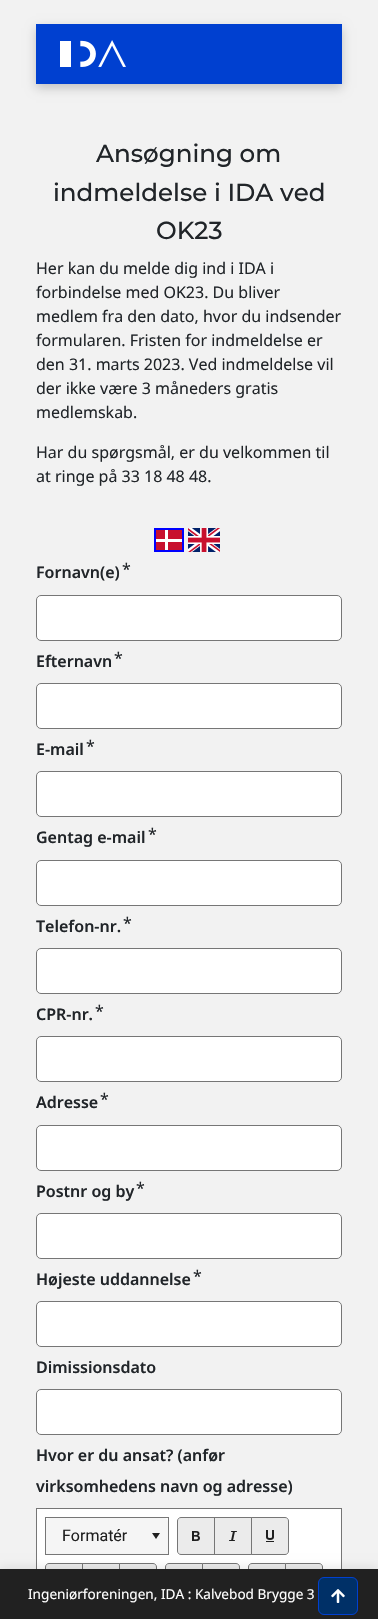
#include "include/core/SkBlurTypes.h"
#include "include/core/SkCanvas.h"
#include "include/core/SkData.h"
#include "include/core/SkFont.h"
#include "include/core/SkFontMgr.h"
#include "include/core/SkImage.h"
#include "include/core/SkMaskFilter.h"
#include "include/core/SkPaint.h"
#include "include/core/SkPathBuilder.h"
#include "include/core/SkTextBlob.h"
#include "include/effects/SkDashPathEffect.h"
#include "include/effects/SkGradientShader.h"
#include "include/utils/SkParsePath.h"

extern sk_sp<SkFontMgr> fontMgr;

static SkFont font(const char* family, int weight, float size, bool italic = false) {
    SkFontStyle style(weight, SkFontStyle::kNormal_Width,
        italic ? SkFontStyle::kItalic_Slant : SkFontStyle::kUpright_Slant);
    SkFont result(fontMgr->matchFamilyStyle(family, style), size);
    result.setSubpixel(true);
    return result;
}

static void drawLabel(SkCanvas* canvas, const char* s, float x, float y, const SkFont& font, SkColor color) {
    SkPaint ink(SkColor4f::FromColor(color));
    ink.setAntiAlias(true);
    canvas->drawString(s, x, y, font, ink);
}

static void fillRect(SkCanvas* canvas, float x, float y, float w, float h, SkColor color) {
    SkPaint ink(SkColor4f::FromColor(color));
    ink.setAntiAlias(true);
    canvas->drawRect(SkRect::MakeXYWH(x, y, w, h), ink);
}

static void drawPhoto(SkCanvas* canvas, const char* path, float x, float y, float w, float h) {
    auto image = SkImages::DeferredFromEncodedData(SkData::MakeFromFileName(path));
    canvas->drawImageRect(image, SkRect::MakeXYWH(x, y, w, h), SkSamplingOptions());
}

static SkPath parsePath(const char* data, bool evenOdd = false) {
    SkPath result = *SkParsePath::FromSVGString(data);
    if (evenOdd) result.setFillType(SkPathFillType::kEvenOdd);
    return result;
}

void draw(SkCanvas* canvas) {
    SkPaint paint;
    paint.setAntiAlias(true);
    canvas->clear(0xFFF2F2F2);
    paint.setColor(0x33000000);
    paint.setMaskFilter(SkMaskFilter::MakeBlur(kNormal_SkBlurStyle, 5));
    canvas->drawRect(SkRect::MakeXYWH(36, 28, 306, 60), paint);
    paint.setMaskFilter(nullptr);
    fillRect(canvas, 36, 24, 306, 60, 0xFF0040D0);
    drawPhoto(canvas, "assets/img1.png", 60, 40, 66, 27);
    SkFont font1 = font("Montserrat", 500, 24.6f);
    drawLabel(canvas, "Ansøgning om", 96, 162, font1, 0xFF212529);
    drawLabel(canvas, "indmeldelse i IDA ved", 53, 201, font1, 0xFF212529);
    drawLabel(canvas, "OK23", 156, 239, font1, 0xFF212529);
    SkFont font2 = font("Noto Sans", 400, 16);
    drawLabel(canvas, "Her kan du melde dig ind i IDA i", 36, 274, font2, 0xFF212529);
    drawLabel(canvas, "forbindelse med OK23. Du bliver", 36, 298, font2, 0xFF212529);
    drawLabel(canvas, "medlem fra den dato, hvor du indsender", 36, 322, font2, 0xFF212529);
    drawLabel(canvas, "formularen. Fristen for indmeldelse er", 36, 346, font2, 0xFF212529);
    drawLabel(canvas, "den 31. marts 2023. Ved indmeldelse vil", 36, 370, font2, 0xFF212529);
    drawLabel(canvas, "der ikke være 3 måneders gratis", 36, 394, font2, 0xFF212529);
    drawLabel(canvas, "medlemskab.", 36, 418, font2, 0xFF212529);
    drawLabel(canvas, "Har du spørgsmål, er du velkommen til", 36, 458, font2, 0xFF212529);
    drawLabel(canvas, "at ringe på 33 18 48 48.", 36, 482, font2, 0xFF212529);
    paint.setStroke(true);
    paint.setStrokeWidth(2);
    paint.setColor(0xFF0000FF);
    canvas->drawRect(SkRect::MakeXYWH(155, 529, 28, 22), paint);
    fillRect(canvas, 156, 530, 26, 20, 0xFFC8102E);
    fillRect(canvas, 165, 530, 3, 20, 0xFFFFFFFF);
    fillRect(canvas, 156, 539, 26, 3, 0xFFFFFFFF);
    drawPhoto(canvas, "assets/img2.png", 188, 528, 32, 24);
    SkFont font3 = font("Noto Sans", 600, 16);
    drawLabel(canvas, "Fornavn(e)", 36, 578, font3, 0xFF212529);
    drawLabel(canvas, "*", 122, 575, font2, 0xFF212529);
    paint.setStroke(false);
    paint.setColor(0xFFFFFFFF);
    canvas->drawRoundRect(SkRect::MakeXYWH(36.5f, 595.5f, 305, 45), 4.5f, 4.5f, paint);
    paint.setStroke(true);
    paint.setStrokeWidth(1);
    paint.setColor(0xFF767676);
    canvas->drawRoundRect(SkRect::MakeXYWH(36.5f, 595.5f, 305, 45), 4.5f, 4.5f, paint);
    drawLabel(canvas, "Efternavn", 36, 667, font3, 0xFF212529);
    drawLabel(canvas, "*", 114, 664, font2, 0xFF212529);
    paint.setStroke(false);
    paint.setColor(0xFFFFFFFF);
    canvas->drawRoundRect(SkRect::MakeXYWH(36.5f, 683.5f, 305, 45), 4.5f, 4.5f, paint);
    paint.setStroke(true);
    paint.setColor(0xFF767676);
    canvas->drawRoundRect(SkRect::MakeXYWH(36.5f, 683.5f, 305, 45), 4.5f, 4.5f, paint);
    drawLabel(canvas, "E-mail", 36, 755, font3, 0xFF212529);
    drawLabel(canvas, "*", 86, 752, font2, 0xFF212529);
    paint.setStroke(false);
    paint.setColor(0xFFFFFFFF);
    canvas->drawRoundRect(SkRect::MakeXYWH(36.5f, 771.5f, 305, 45), 4.5f, 4.5f, paint);
    paint.setStroke(true);
    paint.setColor(0xFF767676);
    canvas->drawRoundRect(SkRect::MakeXYWH(36.5f, 771.5f, 305, 45), 4.5f, 4.5f, paint);
    drawLabel(canvas, "Gentag e-mail", 36, 843, font3, 0xFF212529);
    drawLabel(canvas, "*", 148, 840, font2, 0xFF212529);
    paint.setStroke(false);
    paint.setColor(0xFFFFFFFF);
    canvas->drawRoundRect(SkRect::MakeXYWH(36.5f, 860.5f, 305, 45), 4.5f, 4.5f, paint);
    paint.setStroke(true);
    paint.setColor(0xFF767676);
    canvas->drawRoundRect(SkRect::MakeXYWH(36.5f, 860.5f, 305, 45), 4.5f, 4.5f, paint);
    drawLabel(canvas, "Telefon-nr.", 36, 932, font3, 0xFF212529);
    drawLabel(canvas, "*", 123, 929, font2, 0xFF212529);
    paint.setStroke(false);
    paint.setColor(0xFFFFFFFF);
    canvas->drawRoundRect(SkRect::MakeXYWH(36.5f, 948.5f, 305, 45), 4.5f, 4.5f, paint);
    paint.setStroke(true);
    paint.setColor(0xFF767676);
    canvas->drawRoundRect(SkRect::MakeXYWH(36.5f, 948.5f, 305, 45), 4.5f, 4.5f, paint);
    drawLabel(canvas, "CPR-nr.", 36, 1020, font3, 0xFF212529);
    drawLabel(canvas, "*", 95, 1017, font2, 0xFF212529);
    paint.setStroke(false);
    paint.setColor(0xFFFFFFFF);
    canvas->drawRoundRect(SkRect::MakeXYWH(36.5f, 1036.5f, 305, 45), 4.5f, 4.5f, paint);
    paint.setStroke(true);
    paint.setColor(0xFF767676);
    canvas->drawRoundRect(SkRect::MakeXYWH(36.5f, 1036.5f, 305, 45), 4.5f, 4.5f, paint);
    drawLabel(canvas, "Adresse", 36, 1108, font3, 0xFF212529);
    drawLabel(canvas, "*", 100, 1105, font2, 0xFF212529);
    paint.setStroke(false);
    paint.setColor(0xFFFFFFFF);
    canvas->drawRoundRect(SkRect::MakeXYWH(36.5f, 1125.5f, 305, 45), 4.5f, 4.5f, paint);
    paint.setStroke(true);
    paint.setColor(0xFF767676);
    canvas->drawRoundRect(SkRect::MakeXYWH(36.5f, 1125.5f, 305, 45), 4.5f, 4.5f, paint);
    drawLabel(canvas, "Postnr og by", 36, 1197, font3, 0xFF212529);
    drawLabel(canvas, "*", 136, 1194, font2, 0xFF212529);
    paint.setStroke(false);
    paint.setColor(0xFFFFFFFF);
    canvas->drawRoundRect(SkRect::MakeXYWH(36.5f, 1213.5f, 305, 45), 4.5f, 4.5f, paint);
    paint.setStroke(true);
    paint.setColor(0xFF767676);
    canvas->drawRoundRect(SkRect::MakeXYWH(36.5f, 1213.5f, 305, 45), 4.5f, 4.5f, paint);
    drawLabel(canvas, "Højeste uddannelse", 36, 1285, font3, 0xFF212529);
    drawLabel(canvas, "*", 193, 1282, font2, 0xFF212529);
    paint.setStroke(false);
    paint.setColor(0xFFFFFFFF);
    canvas->drawRoundRect(SkRect::MakeXYWH(36.5f, 1301.5f, 305, 45), 4.5f, 4.5f, paint);
    paint.setStroke(true);
    paint.setColor(0xFF767676);
    canvas->drawRoundRect(SkRect::MakeXYWH(36.5f, 1301.5f, 305, 45), 4.5f, 4.5f, paint);
    drawLabel(canvas, "Dimissionsdato", 36, 1373, font3, 0xFF212529);
    paint.setStroke(false);
    paint.setColor(0xFFFFFFFF);
    canvas->drawRoundRect(SkRect::MakeXYWH(36.5f, 1389.5f, 305, 45), 4.5f, 4.5f, paint);
    paint.setStroke(true);
    paint.setColor(0xFF767676);
    canvas->drawRoundRect(SkRect::MakeXYWH(36.5f, 1389.5f, 305, 45), 4.5f, 4.5f, paint);
    drawLabel(canvas, "Hvor er du ansat? (anfør", 36, 1461, font3, 0xFF212529);
    drawLabel(canvas, "virksomhedens navn og adresse)", 36, 1492, font3, 0xFF212529);
    fillRect(canvas, 37, 1509, 304, 60, 0xFFFFFFFF);
    canvas->drawRect(SkRect::MakeXYWH(36.5f, 1508.5f, 305, 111), paint);
    canvas->drawRect(SkRect::MakeXYWH(45.5f, 1517.5f, 123, 37), paint);
    paint.setStroke(false);
    paint.setColor(0xFFF5F5F5);
    canvas->drawPath(parsePath("M50 1518H164C166 1518 168 1520 168 1522V1554H46V1522C46 1520 48 1518 50 1518Z"), paint);
    SkFont font4 = font("Roboto", 400, 16);
    drawLabel(canvas, "Formatér", 62, 1541, font4, 0xFF202020);
    paint.setColor(0xFF202020);
    canvas->drawPath(parsePath("M156 1539L152 1533H160Z"), paint);
    paint.setColor(0xFFEBEBEB);
    canvas->drawPath(parsePath("M181 1517.5H214.5V1554.5H181C179 1554.5 177.5 1553 177.5 1551V1521C177.5 1519 179 1517.5 181 1517.5Z"), paint);
    paint.setStroke(true);
    paint.setColor(0xFF767676);
    canvas->drawPath(parsePath("M181 1517.5H214.5V1554.5H181C179 1554.5 177.5 1553 177.5 1551V1521C177.5 1519 179 1517.5 181 1517.5Z"), paint);
    drawPhoto(canvas, "assets/img3.png", 192, 1531, 8, 10);
    paint.setStroke(false);
    paint.setColor(0xFFEBEBEB);
    canvas->drawRect(SkRect::MakeXYWH(214.5f, 1517.5f, 37, 37), paint);
    paint.setStroke(true);
    paint.setColor(0xFF767676);
    canvas->drawRect(SkRect::MakeXYWH(214.5f, 1517.5f, 37, 37), paint);
    drawPhoto(canvas, "assets/img4.png", 229, 1531, 8, 10);
    paint.setStroke(false);
    paint.setColor(0xFFEBEBEB);
    canvas->drawPath(parsePath("M251.5 1517.5H285C287 1517.5 288.5 1519 288.5 1521V1551C288.5 1553 287 1554.5 285 1554.5H251.5Z"), paint);
    paint.setStroke(true);
    paint.setColor(0xFF767676);
    canvas->drawPath(parsePath("M251.5 1517.5H285C287 1517.5 288.5 1519 288.5 1521V1551C288.5 1553 287 1554.5 285 1554.5H251.5Z"), paint);
    drawPhoto(canvas, "assets/img5.png", 266, 1530, 8, 12);
    paint.setStroke(false);
    paint.setColor(0xFFEBEBEB);
    canvas->drawPath(parsePath("M49 1563.5H82.5V1600.5H49C47 1600.5 45.5 1599 45.5 1597V1567C45.5 1565 47 1563.5 49 1563.5Z"), paint);
    paint.setStroke(true);
    paint.setColor(0xFF767676);
    canvas->drawPath(parsePath("M49 1563.5H82.5V1600.5H49C47 1600.5 45.5 1599 45.5 1597V1567C45.5 1565 47 1563.5 49 1563.5Z"), paint);
    fillRect(canvas, 83, 1564, 36, 5, 0xFFEBEBEB);
    canvas->drawRect(SkRect::MakeXYWH(82.5f, 1563.5f, 37, 37), paint);
    paint.setStroke(false);
    paint.setColor(0xFFEBEBEB);
    canvas->drawPath(parsePath("M119.5 1563.5H153C155 1563.5 156.5 1565 156.5 1567V1597C156.5 1599 155 1600.5 153 1600.5H119.5Z"), paint);
    paint.setStroke(true);
    paint.setColor(0xFF767676);
    canvas->drawPath(parsePath("M119.5 1563.5H153C155 1563.5 156.5 1565 156.5 1567V1597C156.5 1599 155 1600.5 153 1600.5H119.5Z"), paint);
    paint.setStroke(false);
    paint.setColor(0xFFEBEBEB);
    canvas->drawPath(parsePath("M169 1563.5H202.5V1600.5H169C167 1600.5 165.5 1599 165.5 1597V1567C165.5 1565 167 1563.5 169 1563.5Z"), paint);
    paint.setStroke(true);
    paint.setColor(0xFF767676);
    canvas->drawPath(parsePath("M169 1563.5H202.5V1600.5H169C167 1600.5 165.5 1599 165.5 1597V1567C165.5 1565 167 1563.5 169 1563.5Z"), paint);
    paint.setStroke(false);
    paint.setColor(0xFFEBEBEB);
    canvas->drawPath(parsePath("M202.5 1563.5H236C238 1563.5 239.5 1565 239.5 1567V1597C239.5 1599 238 1600.5 236 1600.5H202.5Z"), paint);
    paint.setStroke(true);
    paint.setColor(0xFF767676);
    canvas->drawPath(parsePath("M202.5 1563.5H236C238 1563.5 239.5 1565 239.5 1567V1597C239.5 1599 238 1600.5 236 1600.5H202.5Z"), paint);
    paint.setStroke(false);
    paint.setColor(0xFFEBEBEB);
    canvas->drawPath(parsePath("M252 1563.5H285.5V1600.5H252C250 1600.5 248.5 1599 248.5 1597V1567C248.5 1565 250 1563.5 252 1563.5Z"), paint);
    paint.setStroke(true);
    paint.setColor(0xFF767676);
    canvas->drawPath(parsePath("M252 1563.5H285.5V1600.5H252C250 1600.5 248.5 1599 248.5 1597V1567C248.5 1565 250 1563.5 252 1563.5Z"), paint);
    paint.setStroke(false);
    paint.setColor(0xFFEBEBEB);
    canvas->drawPath(parsePath("M285.5 1563.5H319C321 1563.5 322.5 1565 322.5 1567V1597C322.5 1599 321 1600.5 319 1600.5H285.5Z"), paint);
    paint.setStroke(true);
    paint.setColor(0xFF767676);
    canvas->drawPath(parsePath("M285.5 1563.5H319C321 1563.5 322.5 1565 322.5 1567V1597C322.5 1599 321 1600.5 319 1600.5H285.5Z"), paint);
    paint.setStroke(false);
    paint.setColor(0x1A000000);
    paint.setMaskFilter(SkMaskFilter::MakeBlur(kNormal_SkBlurStyle, 5));
    canvas->drawRect(SkRect::MakeXYWH(0, 1568, 378, 50), paint);
    paint.setMaskFilter(nullptr);
    fillRect(canvas, 0, 1569, 378, 50, 0xFF212121);
    SkFont font5 = font("Noto Sans", 400, 13.6f);
    drawLabel(canvas, "Ingeniørforeningen, IDA : Kalvebod Brygge 3", 28, 1599, font5, 0xFFFFFFFF);
    paint.setColor(0xFF003067);
    canvas->drawRoundRect(SkRect::MakeXYWH(318.5f, 1577.5f, 39, 37), 5.5f, 5.5f, paint);
    paint.setStroke(true);
    paint.setColor(0xFF0040D0);
    canvas->drawRoundRect(SkRect::MakeXYWH(318.5f, 1577.5f, 39, 37), 5.5f, 5.5f, paint);
    drawPhoto(canvas, "assets/img6.png", 331, 1589, 14, 14);
}
